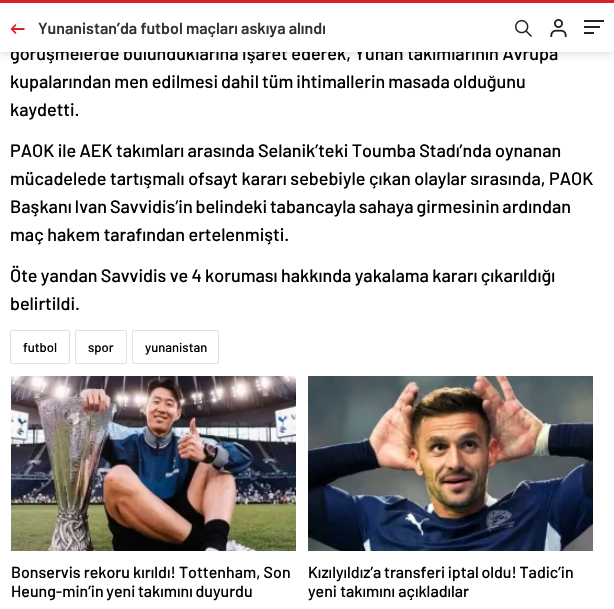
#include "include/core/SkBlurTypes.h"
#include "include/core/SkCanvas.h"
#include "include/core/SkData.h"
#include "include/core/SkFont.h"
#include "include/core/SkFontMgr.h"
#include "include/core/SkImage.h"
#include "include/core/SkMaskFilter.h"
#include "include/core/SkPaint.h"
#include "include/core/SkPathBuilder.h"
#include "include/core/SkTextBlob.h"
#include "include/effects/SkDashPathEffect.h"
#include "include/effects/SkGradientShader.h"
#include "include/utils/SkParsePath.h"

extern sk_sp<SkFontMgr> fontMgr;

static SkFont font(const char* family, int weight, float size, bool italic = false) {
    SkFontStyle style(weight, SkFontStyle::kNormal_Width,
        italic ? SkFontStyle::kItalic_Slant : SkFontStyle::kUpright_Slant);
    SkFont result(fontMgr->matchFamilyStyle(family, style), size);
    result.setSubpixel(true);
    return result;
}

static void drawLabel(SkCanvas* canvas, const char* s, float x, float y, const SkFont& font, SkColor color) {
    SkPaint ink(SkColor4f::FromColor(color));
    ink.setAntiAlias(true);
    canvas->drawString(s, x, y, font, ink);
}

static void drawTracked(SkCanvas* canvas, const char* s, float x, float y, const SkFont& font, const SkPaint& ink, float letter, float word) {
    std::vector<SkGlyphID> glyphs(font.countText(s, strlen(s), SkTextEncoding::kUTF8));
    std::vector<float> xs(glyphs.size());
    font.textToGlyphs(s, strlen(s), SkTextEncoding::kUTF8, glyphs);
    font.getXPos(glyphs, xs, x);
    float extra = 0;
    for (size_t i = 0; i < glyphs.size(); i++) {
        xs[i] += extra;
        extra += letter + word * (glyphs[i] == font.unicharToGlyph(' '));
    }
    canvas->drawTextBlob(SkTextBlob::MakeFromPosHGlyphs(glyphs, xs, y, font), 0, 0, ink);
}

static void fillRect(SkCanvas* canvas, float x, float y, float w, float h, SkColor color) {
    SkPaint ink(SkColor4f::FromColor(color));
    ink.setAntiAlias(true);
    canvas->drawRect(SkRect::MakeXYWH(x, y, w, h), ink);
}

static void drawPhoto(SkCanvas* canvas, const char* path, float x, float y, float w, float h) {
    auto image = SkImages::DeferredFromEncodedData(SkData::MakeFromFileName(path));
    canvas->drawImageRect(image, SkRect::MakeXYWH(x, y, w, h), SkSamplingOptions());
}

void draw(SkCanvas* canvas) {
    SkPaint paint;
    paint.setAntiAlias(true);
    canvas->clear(0xFFFFFFFF);
    paint.setColor(0x94BABABA);
    paint.setMaskFilter(SkMaskFilter::MakeBlur(kNormal_SkBlurStyle, 4));
    canvas->drawRect(SkRect::MakeXYWH(0, 1, 614, 52), paint);
    paint.setMaskFilter(nullptr);
    SkFont font1 = font("Barlow", 500, 18);
    drawLabel(canvas, "görüşmelerde bulunduklarına işaret ederek, Yunan takımlarının Avrupa", 10, 60, font1, 0xFF000000);
    fillRect(canvas, 0, 3, 614, 49, 0xFFFFFFFF);
    fillRect(canvas, 0, 0, 614, 3, 0xFFDB2027);
    drawPhoto(canvas, "assets/img1.png", 10, 24, 15, 10);
    SkFont font2 = font("Barlow", 600, 16);
    drawLabel(canvas, "Yunanistan’da futbol maçları askıya alındı", 38, 34, font2, 0xFF333333);
    drawPhoto(canvas, "assets/img2.png", 515, 20, 17, 17);
    drawPhoto(canvas, "assets/img3.png", 550, 19, 17, 18);
    fillRect(canvas, 584, 20, 20, 2, 0xFF222222);
    fillRect(canvas, 584, 26, 16, 2, 0xFF222222);
    fillRect(canvas, 584, 32, 10, 2, 0xFF222222);
    paint.setColor(0xFF000000);
    drawTracked(canvas, "kupalarından men edilmesi dahil tüm ihtimallerin masada olduğunu", 10, 88, font1, paint, 0, -0.5f);
    drawLabel(canvas, "kaydetti.", 10, 116, font1, 0xFF000000);
    drawTracked(canvas, "PAOK ile AEK takımları arasında Selanik’teki Toumba Stadı’nda oynanan", 10, 157, font1, paint, 0, -0.25f);
    drawLabel(canvas, "mücadelede tartışmalı ofsayt kararı sebebiyle çıkan olaylar sırasında, PAOK", 10, 185, font1, 0xFF000000);
    drawTracked(canvas, "Başkanı Ivan Savvidis’in belindeki tabancayla sahaya girmesinin ardından", 10, 213, font1, paint, 0, -0.75f);
    drawLabel(canvas, "maç hakem tarafından ertelenmişti.", 10, 241, font1, 0xFF000000);
    drawTracked(canvas, "Öte yandan Savvidis ve 4 koruması hakkında yakalama kararı çıkarıldığı", 10, 282, font1, paint, 0, -0.25f);
    drawLabel(canvas, "belirtildi.", 10, 310, font1, 0xFF000000);
    paint.setStroke(true);
    paint.setStrokeWidth(1);
    paint.setColor(0xFFE1E1E1);
    canvas->drawRoundRect(SkRect::MakeXYWH(10.5f, 330.5f, 59, 33), 1.5f, 1.5f, paint);
    SkFont font3 = font("Barlow", 500, 13);
    drawLabel(canvas, "futbol", 23, 352, font3, 0xFF000000);
    canvas->drawRoundRect(SkRect::MakeXYWH(75.5f, 330.5f, 51, 33), 1.5f, 1.5f, paint);
    drawLabel(canvas, "spor", 88, 352, font3, 0xFF000000);
    canvas->drawRoundRect(SkRect::MakeXYWH(132.5f, 330.5f, 86, 33), 1.5f, 1.5f, paint);
    drawLabel(canvas, "yunanistan", 145, 352, font3, 0xFF000000);
    drawPhoto(canvas, "assets/img4.png", 11, 376, 285, 175);
    SkFont font4 = font("Barlow", 500, 16);
    drawLabel(canvas, "Bonservis rekoru kırıldı! Tottenham, Son", 11, 578, font4, 0xFF000000);
    paint.setStroke(false);
    paint.setColor(0xFF000000);
    drawTracked(canvas, "Heung-min’in yeni takımını duyurdu", 11, 597, font4, paint, 0, -0.5f);
    drawPhoto(canvas, "assets/img5.png", 308, 376, 285, 175);
    drawTracked(canvas, "Kızılyıldız’a transferi iptal oldu! Tadic’in", 308, 578, font4, paint, 0, -0.5f);
    drawLabel(canvas, "yeni takımını açıkladılar", 308, 597, font4, 0xFF000000);
}
